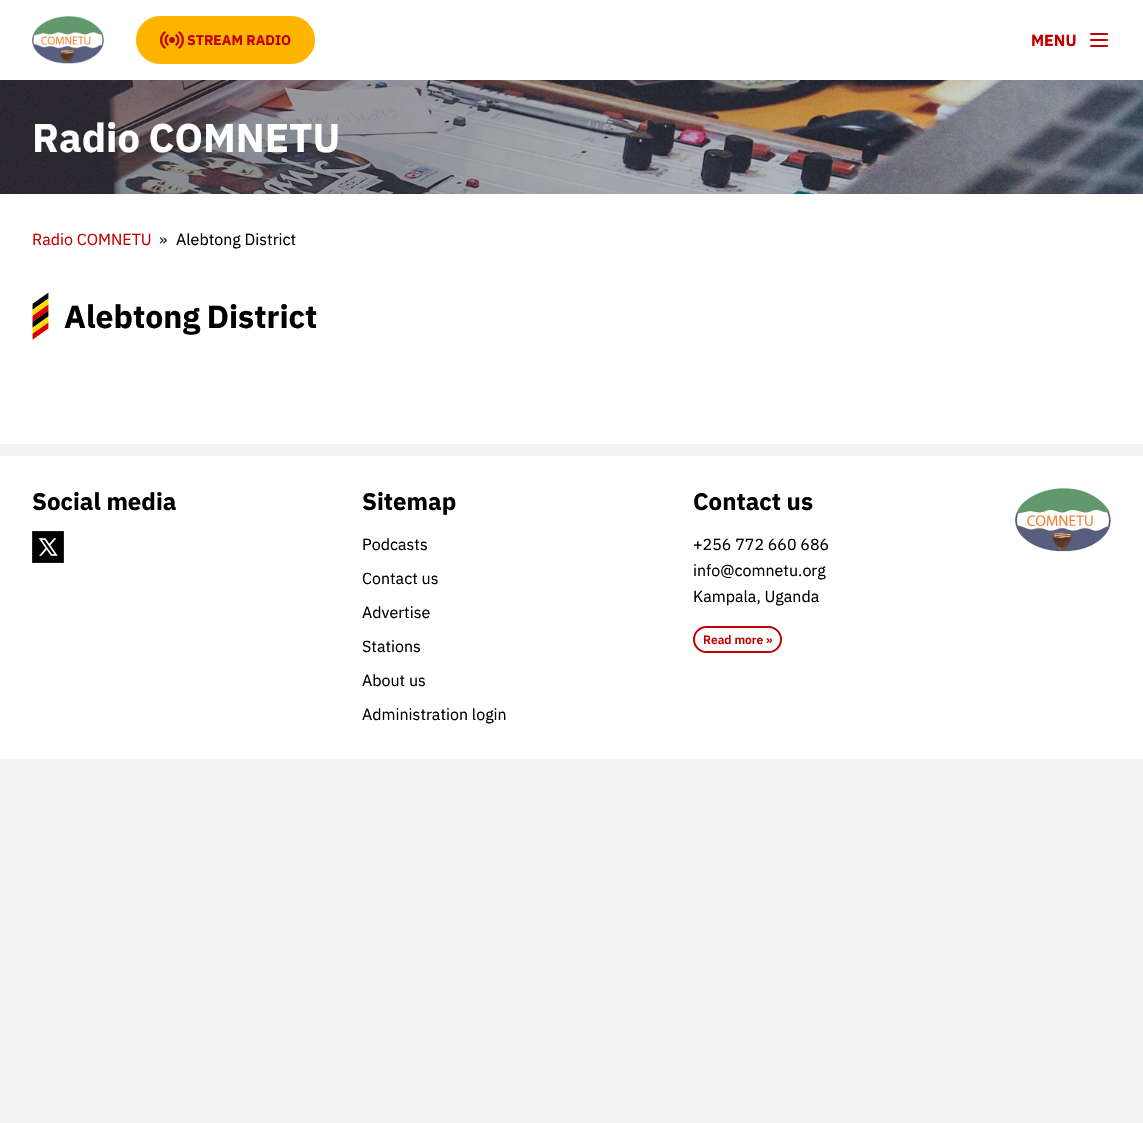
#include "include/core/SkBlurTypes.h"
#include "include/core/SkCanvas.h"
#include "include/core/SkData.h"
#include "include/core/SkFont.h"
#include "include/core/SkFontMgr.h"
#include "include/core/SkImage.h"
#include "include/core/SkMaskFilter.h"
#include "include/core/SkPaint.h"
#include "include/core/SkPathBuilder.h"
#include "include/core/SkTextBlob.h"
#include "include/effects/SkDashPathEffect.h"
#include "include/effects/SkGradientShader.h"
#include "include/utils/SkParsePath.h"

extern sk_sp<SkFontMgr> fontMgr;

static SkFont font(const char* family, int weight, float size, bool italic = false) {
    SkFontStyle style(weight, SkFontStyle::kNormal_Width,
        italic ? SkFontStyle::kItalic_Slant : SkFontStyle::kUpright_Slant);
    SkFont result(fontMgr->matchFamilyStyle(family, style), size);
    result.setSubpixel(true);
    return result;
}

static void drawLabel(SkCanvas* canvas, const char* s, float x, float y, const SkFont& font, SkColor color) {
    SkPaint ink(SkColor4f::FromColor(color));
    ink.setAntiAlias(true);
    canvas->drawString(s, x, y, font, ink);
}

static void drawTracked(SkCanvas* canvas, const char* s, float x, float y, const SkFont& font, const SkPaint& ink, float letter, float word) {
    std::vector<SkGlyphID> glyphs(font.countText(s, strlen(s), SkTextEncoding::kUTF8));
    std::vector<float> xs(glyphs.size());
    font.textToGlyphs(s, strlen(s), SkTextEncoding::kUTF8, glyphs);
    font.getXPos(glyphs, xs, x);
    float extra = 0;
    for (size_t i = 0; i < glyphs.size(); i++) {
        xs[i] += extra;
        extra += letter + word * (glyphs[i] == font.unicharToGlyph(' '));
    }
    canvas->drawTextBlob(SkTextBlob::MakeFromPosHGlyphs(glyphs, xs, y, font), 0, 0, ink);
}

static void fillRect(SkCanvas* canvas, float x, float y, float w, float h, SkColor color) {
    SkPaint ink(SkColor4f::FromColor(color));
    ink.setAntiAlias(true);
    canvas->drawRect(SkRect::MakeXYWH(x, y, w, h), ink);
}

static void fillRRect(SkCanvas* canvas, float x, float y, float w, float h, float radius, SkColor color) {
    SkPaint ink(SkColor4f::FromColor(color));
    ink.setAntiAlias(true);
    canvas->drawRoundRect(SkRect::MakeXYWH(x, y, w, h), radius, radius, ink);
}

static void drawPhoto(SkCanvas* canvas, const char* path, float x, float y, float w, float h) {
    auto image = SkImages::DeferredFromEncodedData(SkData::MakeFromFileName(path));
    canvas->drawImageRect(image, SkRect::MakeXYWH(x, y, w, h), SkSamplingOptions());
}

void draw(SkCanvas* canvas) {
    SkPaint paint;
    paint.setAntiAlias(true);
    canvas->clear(0xFFF3F3F3);
    fillRect(canvas, 0, 0, 1143, 759, 0xFFFFFFFF);
    drawPhoto(canvas, "assets/img1.png", 32, 16, 72, 48);
    fillRRect(canvas, 136, 16, 179, 48, 24, 0xFFFFB400);
    drawPhoto(canvas, "assets/img2.png", 160, 31, 24, 18);
    SkFont font1 = font("IBM Plex Sans", 700, 14);
    drawLabel(canvas, "STREAM RADIO", 187, 45, font1, 0xFFC30000);
    SkFont font2 = font("IBM Plex Sans", 700, 16);
    drawLabel(canvas, "MENU", 1031, 46, font2, 0xFFC30000);
    drawPhoto(canvas, "assets/img3.png", 1090, 33, 18, 14);
    drawPhoto(canvas, "assets/img4.png", 0, 80, 1143, 114);
    SkFont font3 = font("IBM Plex Sans", 700, 40);
    paint.setColor(0xFFFFFFFF);
    drawTracked(canvas, "Radio COMNETU", 32, 152, font3, paint, 0, -1);
    SkFont font4 = font("IBM Plex Sans", 400, 16);
    drawLabel(canvas, "Radio COMNETU", 32, 245, font4, 0xFFC30000);
    drawLabel(canvas, "»", 159, 245, font4, 0xFF2C2327);
    drawLabel(canvas, "Alebtong District", 176, 245, font4, 0xFF000000);
    drawPhoto(canvas, "assets/img5.png", 32, 292, 17, 48);
    SkFont font5 = font("IBM Plex Sans", 700, 32);
    paint.setColor(0xFF000000);
    drawTracked(canvas, "Alebtong District", 64, 328, font5, paint, 0, -1);
    fillRect(canvas, 0, 444, 1143, 12, 0xFFF3F3F3);
    SkFont font6 = font("IBM Plex Sans", 700, 24);
    drawLabel(canvas, "Social media", 32, 510, font6, 0xFF000000);
    drawPhoto(canvas, "assets/img6.png", 32, 531, 32, 32);
    drawLabel(canvas, "Sitemap", 362, 510, font6, 0xFF000000);
    drawLabel(canvas, "Podcasts", 362, 550, font4, 0xFF000000);
    drawLabel(canvas, "Contact us", 362, 584, font4, 0xFF000000);
    drawLabel(canvas, "Advertise", 362, 618, font4, 0xFF000000);
    drawLabel(canvas, "Stations", 362, 652, font4, 0xFF000000);
    drawLabel(canvas, "About us", 362, 686, font4, 0xFF000000);
    drawLabel(canvas, "Administration login", 362, 720, font4, 0xFF000000);
    drawLabel(canvas, "Contact us", 693, 510, font6, 0xFF000000);
    drawLabel(canvas, "+256 772 660 686", 693, 550, font4, 0xFF000000);
    drawLabel(canvas, "info@comnetu.org", 693, 576, font4, 0xFF000000);
    drawLabel(canvas, "Kampala, Uganda", 693, 602, font4, 0xFF000000);
    paint.setStroke(true);
    paint.setStrokeWidth(2);
    paint.setColor(0xFFC30000);
    canvas->drawRoundRect(SkRect::MakeXYWH(694, 627, 87, 25), 12.5f, 12.5f, paint);
    SkFont font7 = font("IBM Plex Sans", 600, 12);
    drawLabel(canvas, "Read more »", 703, 644, font7, 0xFFC30000);
    drawPhoto(canvas, "assets/img7.png", 1015, 488, 96, 64);
}
